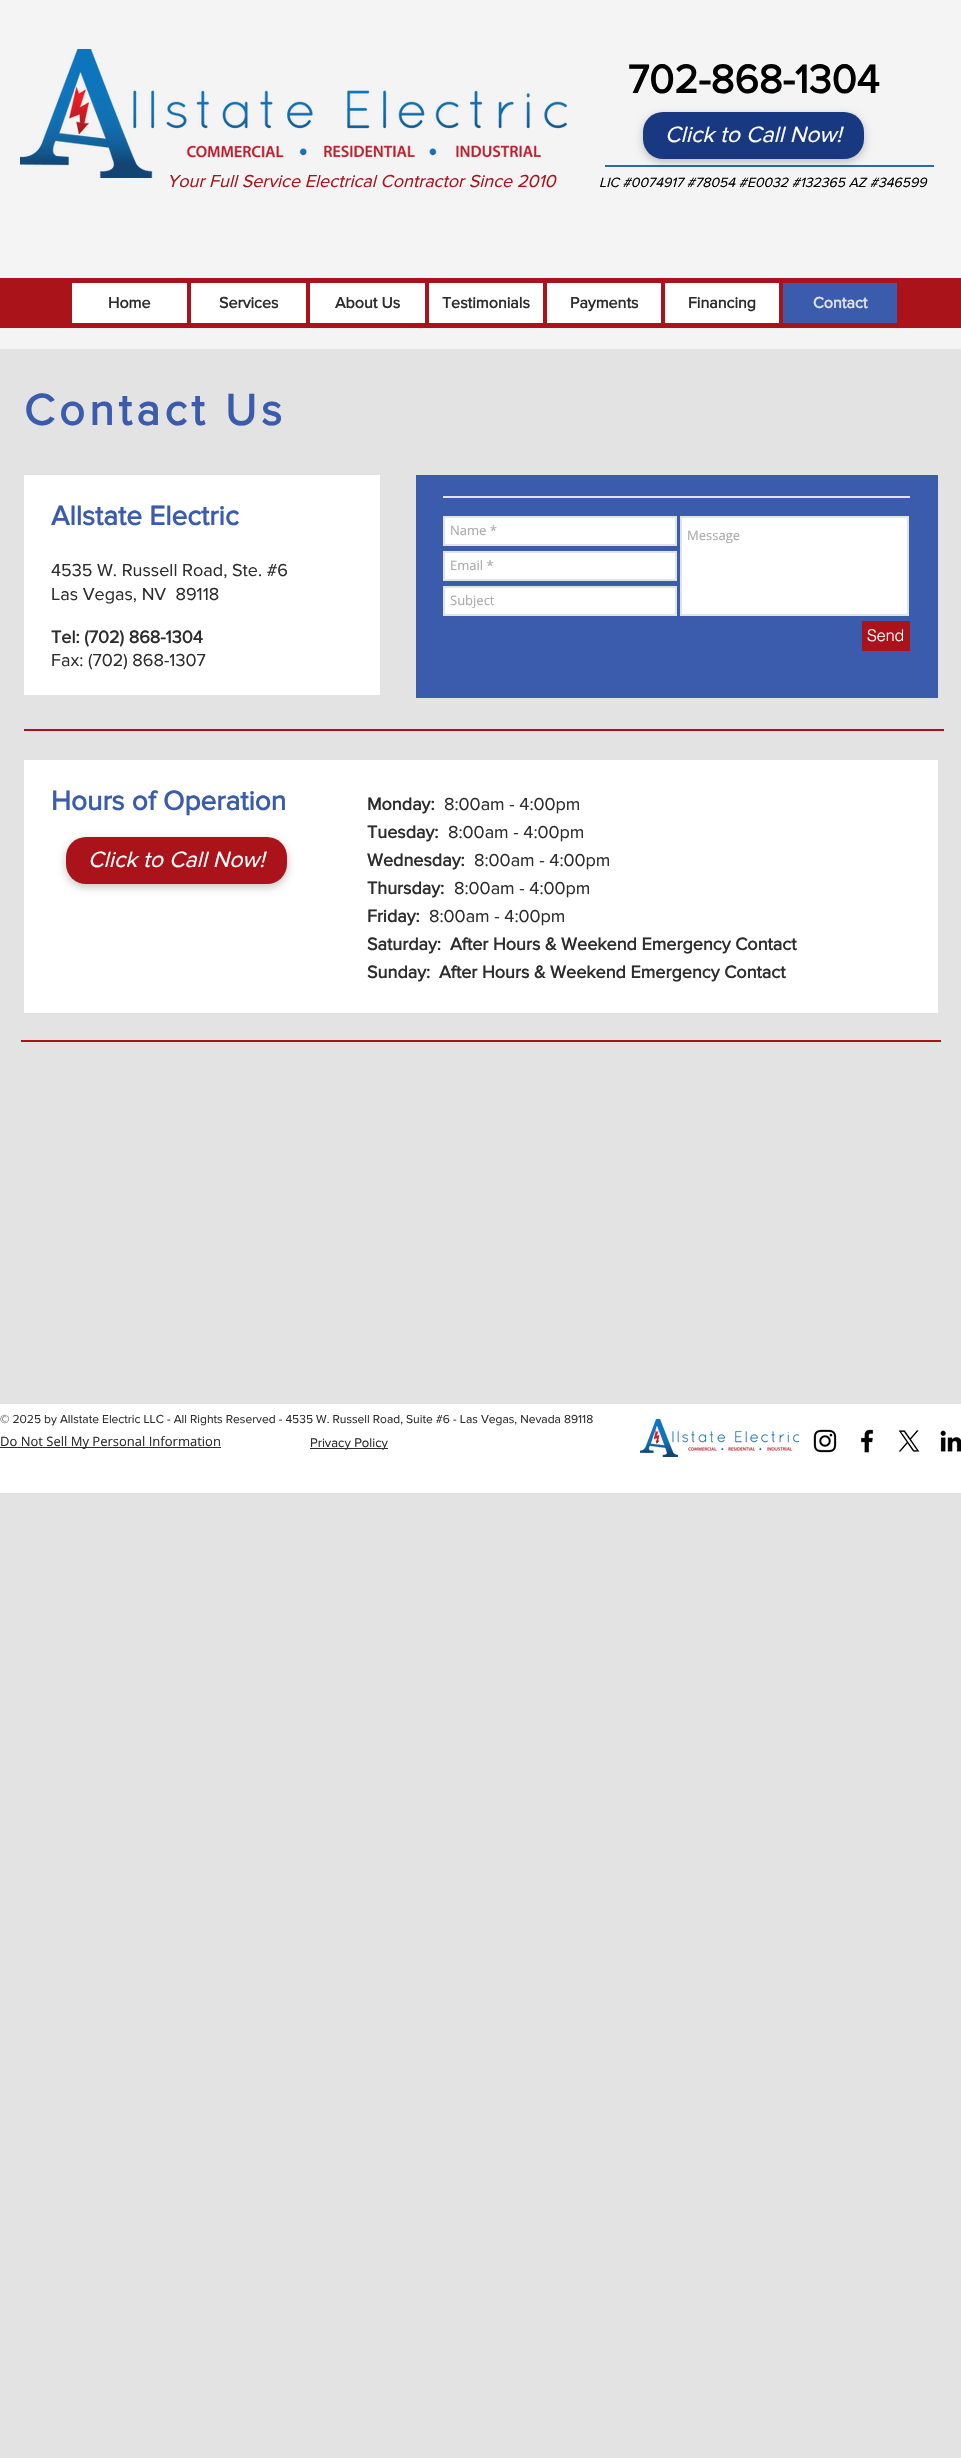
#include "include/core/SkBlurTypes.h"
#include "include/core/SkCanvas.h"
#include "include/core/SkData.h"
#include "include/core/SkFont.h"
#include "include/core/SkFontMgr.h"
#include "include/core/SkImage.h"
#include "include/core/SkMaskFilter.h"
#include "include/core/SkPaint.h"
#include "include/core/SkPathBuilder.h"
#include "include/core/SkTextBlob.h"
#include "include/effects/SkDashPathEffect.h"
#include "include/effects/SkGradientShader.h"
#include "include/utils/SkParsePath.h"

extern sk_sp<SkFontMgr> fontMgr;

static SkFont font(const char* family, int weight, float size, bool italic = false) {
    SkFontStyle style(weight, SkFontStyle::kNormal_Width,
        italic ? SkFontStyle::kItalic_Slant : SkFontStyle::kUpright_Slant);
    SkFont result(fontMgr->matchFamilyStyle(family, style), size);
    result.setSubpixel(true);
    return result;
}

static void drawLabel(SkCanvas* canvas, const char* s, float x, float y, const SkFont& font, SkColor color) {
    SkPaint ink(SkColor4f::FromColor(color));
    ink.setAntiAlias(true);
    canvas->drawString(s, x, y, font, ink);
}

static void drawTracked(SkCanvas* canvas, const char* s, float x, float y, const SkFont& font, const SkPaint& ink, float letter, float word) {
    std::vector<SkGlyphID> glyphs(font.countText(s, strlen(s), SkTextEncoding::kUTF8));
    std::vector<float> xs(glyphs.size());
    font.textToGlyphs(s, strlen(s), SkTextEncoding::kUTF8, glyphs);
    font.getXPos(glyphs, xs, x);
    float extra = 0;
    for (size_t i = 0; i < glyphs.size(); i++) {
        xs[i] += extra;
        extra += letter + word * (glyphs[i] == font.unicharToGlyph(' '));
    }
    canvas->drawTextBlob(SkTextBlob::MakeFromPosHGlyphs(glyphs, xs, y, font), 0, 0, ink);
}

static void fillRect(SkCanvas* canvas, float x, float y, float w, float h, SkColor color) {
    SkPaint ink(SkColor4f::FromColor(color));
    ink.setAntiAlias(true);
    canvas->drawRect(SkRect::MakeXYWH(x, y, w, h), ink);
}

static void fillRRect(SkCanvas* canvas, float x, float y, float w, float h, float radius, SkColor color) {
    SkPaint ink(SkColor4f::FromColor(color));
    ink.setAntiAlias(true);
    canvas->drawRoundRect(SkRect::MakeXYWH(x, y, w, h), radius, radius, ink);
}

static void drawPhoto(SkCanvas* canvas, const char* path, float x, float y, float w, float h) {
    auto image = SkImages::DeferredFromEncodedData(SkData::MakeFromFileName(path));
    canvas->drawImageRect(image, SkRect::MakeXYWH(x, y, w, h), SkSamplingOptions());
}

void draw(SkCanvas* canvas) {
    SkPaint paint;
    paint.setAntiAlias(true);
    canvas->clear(0xFFE3E3E3);
    fillRect(canvas, 0, 0, 961, 349, 0xFFF4F4F4);
    drawPhoto(canvas, "assets/img1.png", 20, 49, 547, 129);
    SkFont font1 = font("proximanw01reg", 700, 41);
    drawLabel(canvas, "702-868-1304", 628, 93, font1, 0xFF000000);
    fillRect(canvas, 605, 165, 329, 2, 0xFF2B6CA3);
    paint.setColor(0x3B000000);
    paint.setMaskFilter(SkMaskFilter::MakeBlur(kNormal_SkBlurStyle, 4.5f));
    canvas->drawRoundRect(SkRect::MakeXYWH(643, 115, 221, 47), 20, 20, paint);
    paint.setMaskFilter(nullptr);
    fillRRect(canvas, 643, 112, 221, 47, 20, 0xFF183981);
    SkFont font2 = font("proximanw01reg", 400, 23, true);
    drawLabel(canvas, "Click to Call Now!", 665, 142, font2, 0xFFFFFFFF);
    SkFont font3 = font("proximanw01reg", 400, 18, true);
    drawLabel(canvas, "Your Full Service Electrical Contractor Since 2010", 167, 187, font3, 0xFFAA1319);
    SkFont font4 = font("proximanw01reg", 400, 14, true);
    drawLabel(canvas, "LIC #0074917 #78054 #E0032 #132365 AZ #346599", 599, 187, font4, 0xFF000000);
    fillRect(canvas, 0, 278, 961, 50, 0xFFAA1319);
    fillRect(canvas, 72, 283, 115, 40, 0xFFFFFFFF);
    SkFont font5 = font("proximanw01reg", 700, 16);
    drawLabel(canvas, "Home", 108, 308, font5, 0xFF2D2D2D);
    fillRect(canvas, 191, 283, 115, 40, 0xFFFFFFFF);
    drawLabel(canvas, "Services", 219, 308, font5, 0xFF2D2D2D);
    fillRect(canvas, 310, 283, 115, 40, 0xFFFFFFFF);
    drawLabel(canvas, "About Us", 335, 308, font5, 0xFF2D2D2D);
    fillRect(canvas, 429, 283, 114, 40, 0xFFFFFFFF);
    drawLabel(canvas, "Testimonials", 442, 308, font5, 0xFF2D2D2D);
    fillRect(canvas, 547, 283, 114, 40, 0xFFFFFFFF);
    drawLabel(canvas, "Payments", 570, 308, font5, 0xFF2D2D2D);
    fillRect(canvas, 665, 283, 114, 40, 0xFFFFFFFF);
    drawLabel(canvas, "Financing", 688, 308, font5, 0xFF2D2D2D);
    fillRect(canvas, 783, 283, 114, 40, 0xFF3B5BAD);
    drawLabel(canvas, "Contact", 813, 308, font5, 0xFFE3E3E3);
    SkFont font6 = font("proximanw01reg", 700, 45);
    paint.setColor(0xFF3B5BAD);
    drawTracked(canvas, "Contact Us", 24, 425, font6, paint, 4.5f, 0);
    fillRect(canvas, 24, 475, 356, 220, 0xFFFFFFFF);
    SkFont font7 = font("proximanw01reg", 700, 28);
    drawLabel(canvas, "Allstate Electric", 51, 525, font7, 0xFF3B5BAD);
    SkFont font8 = font("proximanw01reg", 400, 18);
    drawLabel(canvas, "4535 W. Russell Road, Ste. #6", 51, 576, font8, 0xFF2D2D2D);
    drawLabel(canvas, "Las Vegas, NV  89118", 51, 600, font8, 0xFF2D2D2D);
    SkFont font9 = font("proximanw01reg", 700, 18);
    drawLabel(canvas, "Tel: (702) 868-1304", 51, 643, font9, 0xFF2D2D2D);
    drawLabel(canvas, "Fax: (702) 868-1307", 51, 666, font8, 0xFF2D2D2D);
    fillRect(canvas, 416, 475, 522, 223, 0xFF3B5BAD);
    fillRect(canvas, 443, 496, 467, 2, 0xFFE3E3E3);
    paint.setColor(0xFFFFFFFF);
    canvas->drawRect(SkRect::MakeXYWH(444, 517, 232, 28), paint);
    paint.setStroke(true);
    paint.setStrokeWidth(2);
    paint.setColor(0xFFE3E3E3);
    canvas->drawRect(SkRect::MakeXYWH(444, 517, 232, 28), paint);
    SkFont font10 = font("Open Sans", 400, 13);
    drawLabel(canvas, "Name *", 450, 535, font10, 0xFFA9A9A9);
    paint.setStroke(false);
    paint.setColor(0xFFFFFFFF);
    canvas->drawRect(SkRect::MakeXYWH(681, 517, 227, 98), paint);
    paint.setStroke(true);
    paint.setColor(0xFFE3E3E3);
    canvas->drawRect(SkRect::MakeXYWH(681, 517, 227, 98), paint);
    drawLabel(canvas, "Message", 687, 540, font10, 0xFFA9A9A9);
    paint.setStroke(false);
    paint.setColor(0xFFFFFFFF);
    canvas->drawRect(SkRect::MakeXYWH(444, 552, 232, 28), paint);
    paint.setStroke(true);
    paint.setColor(0xFFE3E3E3);
    canvas->drawRect(SkRect::MakeXYWH(444, 552, 232, 28), paint);
    drawLabel(canvas, "Email *", 450, 570, font10, 0xFFA9A9A9);
    paint.setStroke(false);
    paint.setColor(0xFFFFFFFF);
    canvas->drawRect(SkRect::MakeXYWH(444, 587, 232, 28), paint);
    paint.setStroke(true);
    paint.setColor(0xFFE3E3E3);
    canvas->drawRect(SkRect::MakeXYWH(444, 587, 232, 28), paint);
    drawLabel(canvas, "Subject", 450, 605, font10, 0xFFA9A9A9);
    fillRect(canvas, 862, 621, 48, 30, 0xFFAA1319);
    SkFont font11 = font("helvetica", 300, 16);
    drawLabel(canvas, "Send", 867, 641, font11, 0xFFFFFFFF);
    fillRect(canvas, 24, 729, 920, 2, 0xFFAA1319);
    fillRect(canvas, 24, 760, 914, 253, 0xFFFFFFFF);
    drawLabel(canvas, "Hours of Operation", 51, 810, font7, 0xFF3B5BAD);
    drawLabel(canvas, "Monday:", 367, 810, font9, 0xFF2D2D2D);
    drawLabel(canvas, "8:00am - 4:00pm", 444, 810, font8, 0xFF2D2D2D);
    drawLabel(canvas, "Tuesday:", 367, 838, font9, 0xFF2D2D2D);
    drawLabel(canvas, "8:00am - 4:00pm", 448, 838, font8, 0xFF2D2D2D);
    drawLabel(canvas, "Wednesday:", 367, 866, font9, 0xFF2D2D2D);
    drawLabel(canvas, "8:00am - 4:00pm", 474, 866, font8, 0xFF2D2D2D);
    drawLabel(canvas, "Thursday:", 367, 894, font9, 0xFF2D2D2D);
    drawLabel(canvas, "8:00am - 4:00pm", 454, 894, font8, 0xFF2D2D2D);
    drawLabel(canvas, "Friday:", 367, 922, font9, 0xFF2D2D2D);
    drawLabel(canvas, "8:00am - 4:00pm", 429, 922, font8, 0xFF2D2D2D);
    drawLabel(canvas, "Saturday:", 367, 950, font9, 0xFF2D2D2D);
    drawLabel(canvas, "After Hours & Weekend Emergency Contact", 450, 950, font9, 0xFF2D2D2D);
    drawLabel(canvas, "Sunday:", 367, 978, font9, 0xFF2D2D2D);
    drawLabel(canvas, "After Hours & Weekend Emergency Contact", 439, 978, font9, 0xFF2D2D2D);
    paint.setStroke(false);
    paint.setColor(0x3B000000);
    paint.setMaskFilter(SkMaskFilter::MakeBlur(kNormal_SkBlurStyle, 4.5f));
    canvas->drawRoundRect(SkRect::MakeXYWH(66, 840, 221, 47), 20, 20, paint);
    paint.setMaskFilter(nullptr);
    fillRRect(canvas, 66, 837, 221, 47, 20, 0xFFAA1319);
    drawLabel(canvas, "Click to Call Now!", 88, 867, font2, 0xFFFFFFFF);
    fillRect(canvas, 21, 1040, 920, 2, 0xFFAA1319);
    fillRect(canvas, 0, 1404, 961, 89, 0xFFFFFFFF);
    SkFont font12 = font("proximanw01reg", 400, 12);
    drawLabel(canvas, "© 2025 by Allstate Electric LLC - All Rights Reserved - 4535 W. Russell Road, Suite #6 - Las Vegas, Nevada 89118", 0, 1423, font12, 0xFF2D2D2D);
    drawPhoto(canvas, "assets/img2.png", 640, 1419, 159, 38);
    drawPhoto(canvas, "assets/img3.png", 813, 1429, 24, 24);
    drawPhoto(canvas, "assets/img4.png", 861, 1429, 13, 24);
    drawPhoto(canvas, "assets/img5.png", 898, 1430, 22, 22);
    drawPhoto(canvas, "assets/img6.png", 940, 1430, 21, 22);
    fillRect(canvas, 0, 1447, 221, 1, 0xFF2D2D2D);
    drawLabel(canvas, "Do Not Sell My Personal Information", 0, 1446, font10, 0xFF2D2D2D);
    fillRect(canvas, 310, 1448, 78, 1, 0xFF2D2D2D);
    SkFont font13 = font("proximanw01reg", 400, 13);
    drawLabel(canvas, "Privacy Policy", 310, 1447, font13, 0xFF2D2D2D);
}
